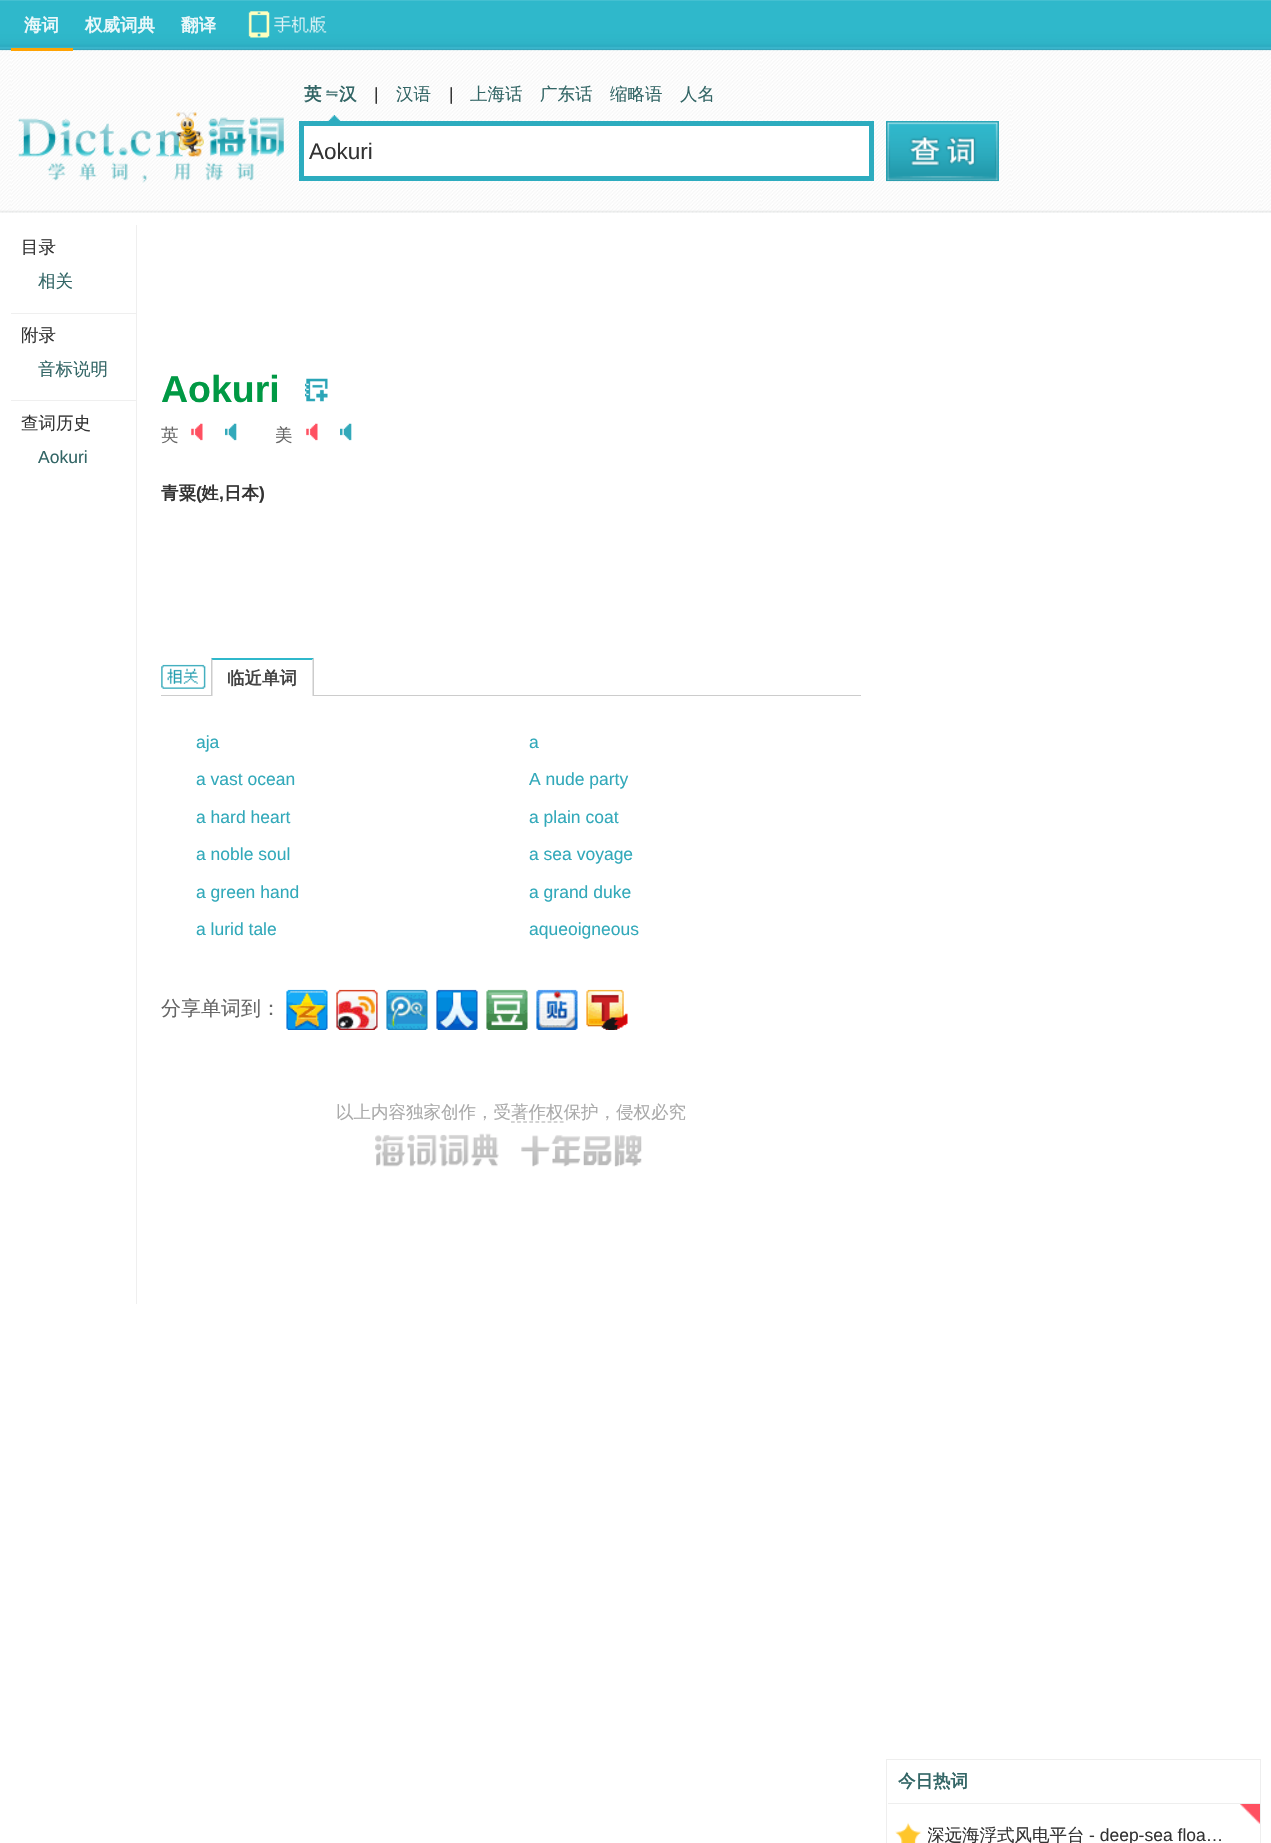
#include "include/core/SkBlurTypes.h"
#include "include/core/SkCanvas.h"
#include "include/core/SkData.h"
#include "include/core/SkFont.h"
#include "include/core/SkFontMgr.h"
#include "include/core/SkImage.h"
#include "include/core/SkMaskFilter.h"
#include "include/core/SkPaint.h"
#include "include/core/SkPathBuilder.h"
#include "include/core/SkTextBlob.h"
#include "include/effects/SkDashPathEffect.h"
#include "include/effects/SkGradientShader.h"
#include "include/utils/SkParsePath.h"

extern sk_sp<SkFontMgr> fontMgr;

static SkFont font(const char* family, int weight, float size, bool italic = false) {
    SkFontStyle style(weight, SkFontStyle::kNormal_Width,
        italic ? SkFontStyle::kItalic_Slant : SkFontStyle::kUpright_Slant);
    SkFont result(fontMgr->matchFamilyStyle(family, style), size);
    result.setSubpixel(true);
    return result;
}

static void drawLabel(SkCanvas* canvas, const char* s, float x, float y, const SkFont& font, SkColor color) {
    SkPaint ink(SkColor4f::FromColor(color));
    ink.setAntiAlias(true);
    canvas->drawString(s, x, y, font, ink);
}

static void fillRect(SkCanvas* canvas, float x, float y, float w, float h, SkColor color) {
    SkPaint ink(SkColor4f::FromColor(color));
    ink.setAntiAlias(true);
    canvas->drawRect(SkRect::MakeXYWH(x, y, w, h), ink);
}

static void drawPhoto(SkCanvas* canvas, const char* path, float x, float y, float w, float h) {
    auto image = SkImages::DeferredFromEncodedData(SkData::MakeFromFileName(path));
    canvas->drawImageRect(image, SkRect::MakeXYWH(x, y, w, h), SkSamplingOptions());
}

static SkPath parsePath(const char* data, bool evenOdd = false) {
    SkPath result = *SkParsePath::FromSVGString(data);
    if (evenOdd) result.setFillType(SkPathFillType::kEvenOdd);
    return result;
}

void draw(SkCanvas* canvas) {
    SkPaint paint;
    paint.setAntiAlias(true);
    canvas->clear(0xFFFFFFFF);
    drawPhoto(canvas, "assets/img1.png", 0, 0, 1271, 213);
    fillRect(canvas, 11, 48, 62, 3, 0xFFFFA303);
    SkFont font1 = font("WenQuanYi Zen Hei", 700, 17.5f);
    drawLabel(canvas, "海词", 24, 31, font1, 0xFFEBF8FA);
    drawLabel(canvas, "权威词典", 85, 31, font1, 0xFFEBF8FA);
    drawLabel(canvas, "翻译", 181, 31, font1, 0xFFEBF8FA);
    drawPhoto(canvas, "assets/img2.png", 248, 11, 79, 27);
    drawPhoto(canvas, "assets/img3.png", 18, 112, 266, 71);
    drawPhoto(canvas, "assets/img4.png", 328, 115, 13, 6);
    drawPhoto(canvas, "assets/img5.png", 326, 90, 12, 7);
    drawLabel(canvas, "英　汉", 304, 100, font1, 0xFF336666);
    SkFont font2 = font("Liberation Sans", 400, 17.5f);
    drawLabel(canvas, "|", 374, 100, font2, 0xFF333333);
    SkFont font3 = font("WenQuanYi Zen Hei", 500, 17.5f);
    drawLabel(canvas, "汉语", 396, 100, font3, 0xFF336666);
    drawLabel(canvas, "|", 449, 100, font2, 0xFF333333);
    drawLabel(canvas, "上海话", 470, 100, font3, 0xFF336666);
    drawLabel(canvas, "广东话", 540, 100, font3, 0xFF336666);
    drawLabel(canvas, "缩略语", 610, 100, font3, 0xFF336666);
    drawLabel(canvas, "人名", 680, 100, font3, 0xFF336666);
    paint.setColor(0xFFFFFFFF);
    canvas->drawRect(SkRect::MakeXYWH(301.5f, 123.5f, 570, 55), paint);
    paint.setStroke(true);
    paint.setStrokeWidth(5);
    paint.setColor(0xFF2DACBF);
    canvas->drawRect(SkRect::MakeXYWH(301.5f, 123.5f, 570, 55), paint);
    SkFont font4 = font("Liberation Sans", 400, 22.5f);
    drawLabel(canvas, "Aokuri", 309, 159, font4, 0xFF333333);
    fillRect(canvas, 886, 121, 113, 60, 0xFF2FB8CB);
    drawPhoto(canvas, "assets/img6.png", 886, 121, 113, 61);
    drawLabel(canvas, "目录", 21, 253, font3, 0xFF333333);
    drawLabel(canvas, "相关", 38, 287, font3, 0xFF336666);
    fillRect(canvas, 11, 313, 125, 1, 0xFFEFEFEF);
    drawLabel(canvas, "附录", 21, 341, font3, 0xFF333333);
    drawLabel(canvas, "音标说明", 38, 375, font3, 0xFF336666);
    fillRect(canvas, 11, 400, 125, 1, 0xFFEFEFEF);
    drawLabel(canvas, "查词历史", 21, 429, font3, 0xFF333333);
    drawLabel(canvas, "Aokuri", 38, 463, font2, 0xFF336666);
    fillRect(canvas, 136, 225, 1, 1079, 0xFFEFEFEF);
    SkFont font5 = font("Liberation Sans", 700, 37.5f);
    drawLabel(canvas, "Aokuri", 161, 402, font5, 0xFF009944);
    drawPhoto(canvas, "assets/img7.png", 305, 378, 23, 24);
    drawLabel(canvas, "英", 161, 441, font3, 0xFF666666);
    drawPhoto(canvas, "assets/img8.png", 191, 423, 12, 18);
    drawPhoto(canvas, "assets/img9.png", 225, 423, 12, 18);
    drawLabel(canvas, "美", 275, 441, font3, 0xFF666666);
    drawPhoto(canvas, "assets/img8.png", 306, 423, 12, 18);
    drawPhoto(canvas, "assets/img9.png", 340, 423, 12, 18);
    drawLabel(canvas, "青粟", 161, 499, font1, 0xFF333333);
    SkFont font6 = font("Liberation Sans", 700, 17.5f);
    drawLabel(canvas, "(", 196, 499, font6, 0xFF333333);
    drawLabel(canvas, "姓", 201, 499, font1, 0xFF333333);
    drawLabel(canvas, ",", 219, 499, font6, 0xFF333333);
    drawLabel(canvas, "日本", 224, 499, font1, 0xFF333333);
    drawLabel(canvas, ")", 259, 499, font6, 0xFF333333);
    drawPhoto(canvas, "assets/img10.png", 161, 664, 45, 25);
    fillRect(canvas, 161, 695, 700, 1, 0xFFCCCCCC);
    fillRect(canvas, 211, 695, 103, 1, 0xFFFFFFFF);
    paint.setStroke(false);
    paint.setColor(0xFF2FB8CB);
    canvas->drawPath(parsePath("M211 658H314L312 660H212Z"), paint);
    paint.setColor(0xFFCCCCCC);
    canvas->drawPath(parsePath("M314 657.5V696H312.5V660Z"), paint);
    canvas->drawPath(parsePath("M211 696V657.5L212.5 660V696Z"), paint);
    drawLabel(canvas, "临近单词", 227, 684, font1, 0xFF444444);
    drawLabel(canvas, "aja", 196, 748, font2, 0xFF32A9BA);
    drawLabel(canvas, "a", 529, 748, font2, 0xFF32A9BA);
    drawLabel(canvas, "a vast ocean", 196, 785, font2, 0xFF32A9BA);
    drawLabel(canvas, "A nude party", 529, 785, font2, 0xFF32A9BA);
    drawLabel(canvas, "a hard heart", 196, 823, font2, 0xFF32A9BA);
    drawLabel(canvas, "a plain coat", 529, 823, font2, 0xFF32A9BA);
    drawLabel(canvas, "a noble soul", 196, 860, font2, 0xFF32A9BA);
    drawLabel(canvas, "a sea voyage", 529, 860, font2, 0xFF32A9BA);
    drawLabel(canvas, "a green hand", 196, 898, font2, 0xFF32A9BA);
    drawLabel(canvas, "a grand duke", 529, 898, font2, 0xFF32A9BA);
    drawLabel(canvas, "a lurid tale", 196, 935, font2, 0xFF32A9BA);
    drawLabel(canvas, "aqueoigneous", 529, 935, font2, 0xFF32A9BA);
    SkFont font7 = font("WenQuanYi Zen Hei", 500, 20);
    drawLabel(canvas, "分享单词到：", 161, 1015, font7, 0xFF666666);
    drawPhoto(canvas, "assets/img11.png", 286, 989, 42, 41);
    drawPhoto(canvas, "assets/img12.png", 336, 989, 42, 41);
    drawPhoto(canvas, "assets/img13.png", 386, 989, 42, 41);
    drawPhoto(canvas, "assets/img14.png", 436, 989, 42, 41);
    drawPhoto(canvas, "assets/img15.png", 486, 989, 42, 41);
    drawPhoto(canvas, "assets/img16.png", 536, 989, 42, 41);
    drawPhoto(canvas, "assets/img17.png", 586, 989, 42, 41);
    drawLabel(canvas, "以上内容独家创作，受著作权保护，侵权必究", 336, 1118, font3, 0xFFAAAAAA);
    paint.setStroke(true);
    paint.setStrokeWidth(1.2f);
    paint.setColor(0xFFAAAAAA);
    paint.setPathEffect(SkDashPathEffect::Make({{3.75f, 2.35f}}, 0));
    canvas->drawPath(parsePath("M511 1122H564"), paint);
    paint.setPathEffect(nullptr);
    drawPhoto(canvas, "assets/img18.png", 375, 1133, 267, 34);
    paint.setStrokeWidth(1);
    paint.setColor(0xFFEEEEEE);
    canvas->drawRect(SkRect::MakeXYWH(886.5f, 1759.5f, 374, 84), paint);
    drawLabel(canvas, "今日热词", 898, 1787, font1, 0xFF336666);
    drawPhoto(canvas, "assets/img19.png", 1240, 1804, 20, 20);
    fillRect(canvas, 888, 1803, 372, 1, 0xFFEEEEEE);
    drawPhoto(canvas, "assets/img20.png", 895, 1822, 27, 21);
    canvas->save();
    canvas->clipRect(SkRect::MakeXYWH(928, 1804, 300, 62));
    drawLabel(canvas, "深远海浮式风电平台", 927, 1841, font3, 0xFF333333);
    canvas->restore();
    drawLabel(canvas, "- deep-sea floa…", 1089, 1841, font2, 0xFF333333);
}
